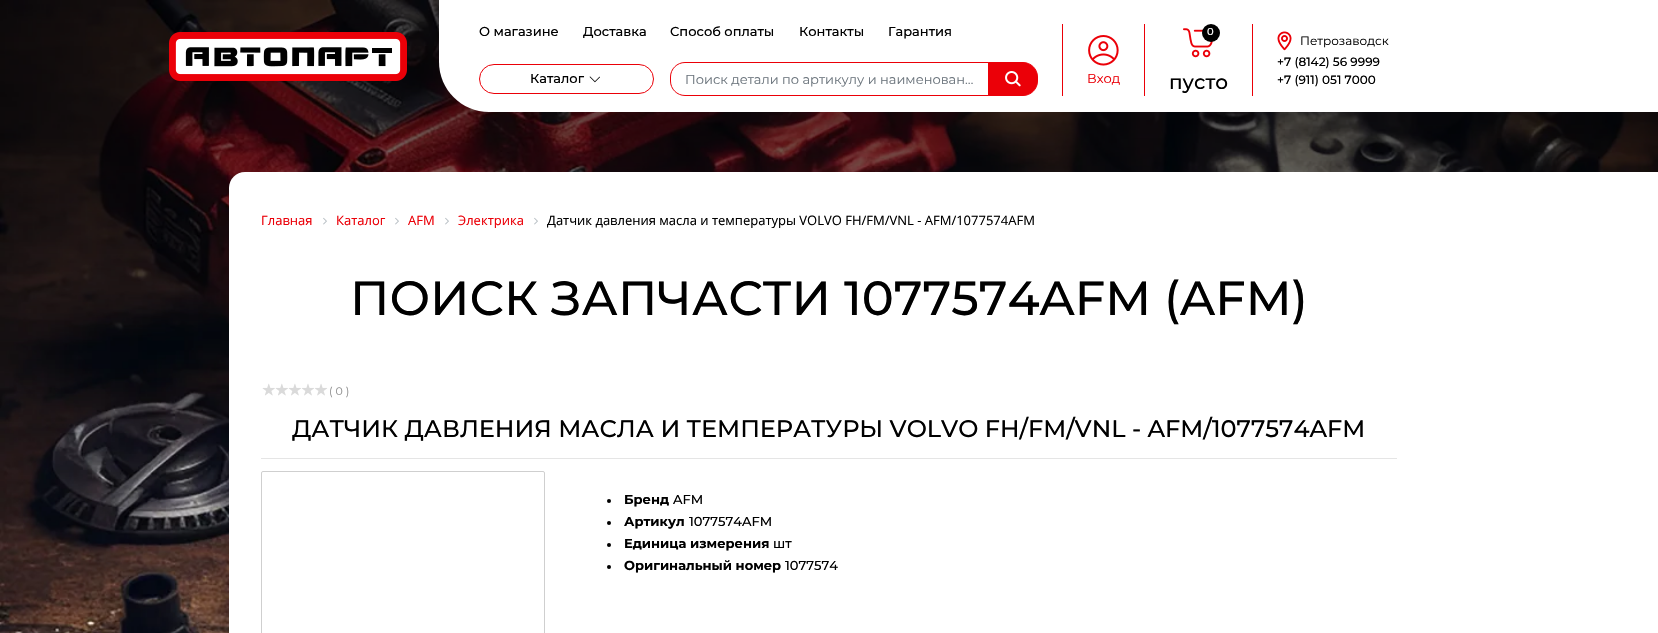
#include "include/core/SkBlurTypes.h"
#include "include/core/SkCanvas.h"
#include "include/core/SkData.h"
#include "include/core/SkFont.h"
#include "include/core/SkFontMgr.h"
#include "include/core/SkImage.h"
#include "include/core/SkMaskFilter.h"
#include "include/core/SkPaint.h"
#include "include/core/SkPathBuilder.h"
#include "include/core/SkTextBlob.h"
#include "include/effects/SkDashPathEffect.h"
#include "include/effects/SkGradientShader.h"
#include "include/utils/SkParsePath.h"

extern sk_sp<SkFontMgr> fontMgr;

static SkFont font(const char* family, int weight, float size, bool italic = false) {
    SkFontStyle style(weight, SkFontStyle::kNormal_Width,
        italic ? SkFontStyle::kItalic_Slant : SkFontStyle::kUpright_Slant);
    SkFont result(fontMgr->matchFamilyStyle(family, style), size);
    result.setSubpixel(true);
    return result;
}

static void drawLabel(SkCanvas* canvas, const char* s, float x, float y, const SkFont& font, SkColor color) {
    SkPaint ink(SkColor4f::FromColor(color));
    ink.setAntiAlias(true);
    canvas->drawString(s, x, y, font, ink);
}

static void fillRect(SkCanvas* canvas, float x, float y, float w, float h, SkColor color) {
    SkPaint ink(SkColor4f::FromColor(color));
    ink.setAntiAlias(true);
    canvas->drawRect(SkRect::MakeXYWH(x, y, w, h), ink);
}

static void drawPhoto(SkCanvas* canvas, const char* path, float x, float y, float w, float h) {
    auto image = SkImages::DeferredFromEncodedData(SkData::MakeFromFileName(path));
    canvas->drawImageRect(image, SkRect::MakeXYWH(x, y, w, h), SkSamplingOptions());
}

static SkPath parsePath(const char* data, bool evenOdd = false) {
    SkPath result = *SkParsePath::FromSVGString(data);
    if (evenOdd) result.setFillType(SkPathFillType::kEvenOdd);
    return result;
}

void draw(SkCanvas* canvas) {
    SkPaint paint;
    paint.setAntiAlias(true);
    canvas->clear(0xFFFFFFFF);
    drawPhoto(canvas, "assets/img1.png", 0, 0, 1658, 633);
    drawPhoto(canvas, "assets/img2.png", 169, 32, 238, 49);
    paint.setColor(0xFFFFFFFF);
    canvas->drawPath(parsePath("M439 0H1429V112H489C461.5 112 439 89.5 439 62Z"), paint);
    SkFont font1 = font("Montserrat", 500, 13);
    drawLabel(canvas, "О магазине", 479, 36, font1, 0xFF000000);
    drawLabel(canvas, "Доставка", 583, 36, font1, 0xFF000000);
    drawLabel(canvas, "Способ оплаты", 670, 36, font1, 0xFF000000);
    drawLabel(canvas, "Контакты", 799, 36, font1, 0xFF000000);
    drawLabel(canvas, "Гарантия", 888, 36, font1, 0xFF000000);
    paint.setStroke(true);
    paint.setStrokeWidth(1);
    paint.setColor(0xFFEB0008);
    canvas->drawRoundRect(SkRect::MakeXYWH(479.5f, 64.5f, 174, 29), 14.5f, 14.5f, paint);
    drawLabel(canvas, "Каталог", 530, 83, font1, 0xFF000000);
    drawPhoto(canvas, "assets/img3.png", 589, 76, 11, 7);
    canvas->drawPath(parsePath("M685 62.5H988.5V95.5H685C677 95.5 670.5 89 670.5 81V77C670.5 69 677 62.5 685 62.5Z"), paint);
    SkFont font2 = font("Montserrat", 400, 13);
    drawLabel(canvas, "Поиск детали по артикулу и наименован…", 685, 84, font2, 0xFF6C757D);
    paint.setStroke(false);
    canvas->drawPath(parsePath("M988.5 62.5H1023C1031 62.5 1037.5 69 1037.5 77V81C1037.5 89 1031 95.5 1023 95.5H988.5Z"), paint);
    paint.setStroke(true);
    canvas->drawPath(parsePath("M988.5 62.5H1023C1031 62.5 1037.5 69 1037.5 77V81C1037.5 89 1031 95.5 1023 95.5H988.5Z"), paint);
    drawPhoto(canvas, "assets/img4.png", 1005, 71, 16, 16);
    fillRect(canvas, 1062, 24, 1, 72, 0xFFEB0008);
    drawPhoto(canvas, "assets/img5.png", 1088, 35, 31, 31);
    drawLabel(canvas, "Вход", 1087, 83, font2, 0xFFEB0008);
    fillRect(canvas, 1144, 24, 1, 72, 0xFFEB0008);
    drawPhoto(canvas, "assets/img6.png", 1183, 28, 30, 30);
    paint.setStroke(false);
    paint.setColor(0xFF000000);
    canvas->drawCircle(1211, 33, 9, paint);
    SkFont font3 = font("Montserrat", 500, 10);
    drawLabel(canvas, "0", 1207, 35, font3, 0xFFFFFFFF);
    SkFont font4 = font("Montserrat", 500, 20);
    drawLabel(canvas, "пусто", 1169, 89, font4, 0xFF000000);
    fillRect(canvas, 1252, 24, 1, 72, 0xFFEB0008);
    drawPhoto(canvas, "assets/img7.png", 1277, 31, 15, 20);
    SkFont font5 = font("Montserrat", 400, 12);
    drawLabel(canvas, "Петрозаводск", 1300, 45, font5, 0xFF000000);
    SkFont font6 = font("Montserrat", 500, 12);
    drawLabel(canvas, "+7 (8142) 56 9999", 1277, 66, font6, 0xFF000000);
    drawLabel(canvas, "+7 (911) 051 7000", 1277, 84, font6, 0xFF000000);
    fillRect(canvas, 1429, 0, 229, 112, 0xFFFFFFFF);
    paint.setColor(0xFFFFFFFF);
    canvas->drawPath(parsePath("M245 172H1429V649H245C236 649 229 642 229 633V188C229 179 236 172 245 172Z"), paint);
    SkFont font7 = font("Open Sans", 400, 13);
    drawLabel(canvas, "Главная", 261, 225, font7, 0xFFEB0008);
    drawPhoto(canvas, "assets/img8.png", 323, 217, 4, 8);
    drawLabel(canvas, "Каталог", 336, 225, font7, 0xFFEB0008);
    drawPhoto(canvas, "assets/img8.png", 395, 217, 4, 8);
    drawLabel(canvas, "AFM", 408, 225, font7, 0xFFEB0008);
    drawPhoto(canvas, "assets/img8.png", 445, 217, 4, 8);
    drawLabel(canvas, "Электрика", 458, 225, font7, 0xFFEB0008);
    drawPhoto(canvas, "assets/img8.png", 534, 217, 4, 8);
    drawLabel(canvas, "Датчик давления масла и температуры VOLVO FH/FM/VNL - AFM/1077574AFM", 547, 225, font7, 0xFF000000);
    SkFont font8 = font("Montserrat", 500, 48);
    drawLabel(canvas, "ПОИСК ЗАПЧАСТИ 1077574AFM (AFM)", 350, 315, font8, 0xFF000000);
    fillRect(canvas, 261, 458, 1136, 1, 0xFFE5E5E5);
    fillRect(canvas, 262, 383, 66, 13, 0xFFDADADA);
    drawPhoto(canvas, "assets/img9.png", 261, 375, 68, 30);
    SkFont font9 = font("Montserrat", 400, 11);
    drawLabel(canvas, "( 0 )", 329, 395, font9, 0xFF8D8D8D);
    SkFont font10 = font("Montserrat", 500, 24);
    drawLabel(canvas, "ДАТЧИК ДАВЛЕНИЯ МАСЛА И ТЕМПЕРАТУРЫ VOLVO FH/FM/VNL - AFM/1077574AFM", 292, 437, font10, 0xFF000000);
    paint.setStroke(true);
    paint.setColor(0xFFCFCFCF);
    canvas->drawRoundRect(SkRect::MakeXYWH(261.5f, 471.5f, 283, 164), 1.5f, 1.5f, paint);
    paint.setStroke(false);
    paint.setColor(0xFF000000);
    canvas->drawCircle(609, 501, 2, paint);
    SkFont font11 = font("Montserrat", 700, 13);
    drawLabel(canvas, "Бренд", 624, 504, font11, 0xFF000000);
    drawLabel(canvas, "AFM", 673, 504, font1, 0xFF000000);
    canvas->drawCircle(609, 523, 2, paint);
    drawLabel(canvas, "Артикул", 624, 526, font11, 0xFF000000);
    drawLabel(canvas, "1077574AFM", 689, 526, font1, 0xFF000000);
    canvas->drawCircle(609, 545, 2, paint);
    drawLabel(canvas, "Единица измерения", 624, 548, font11, 0xFF000000);
    drawLabel(canvas, "шт", 773, 548, font1, 0xFF000000);
    canvas->drawCircle(609, 567, 2, paint);
    drawLabel(canvas, "Оригинальный номер", 624, 570, font11, 0xFF000000);
    drawLabel(canvas, "1077574", 785, 570, font1, 0xFF000000);
    fillRect(canvas, 1429, 172, 229, 461, 0xFFFFFFFF);
}
